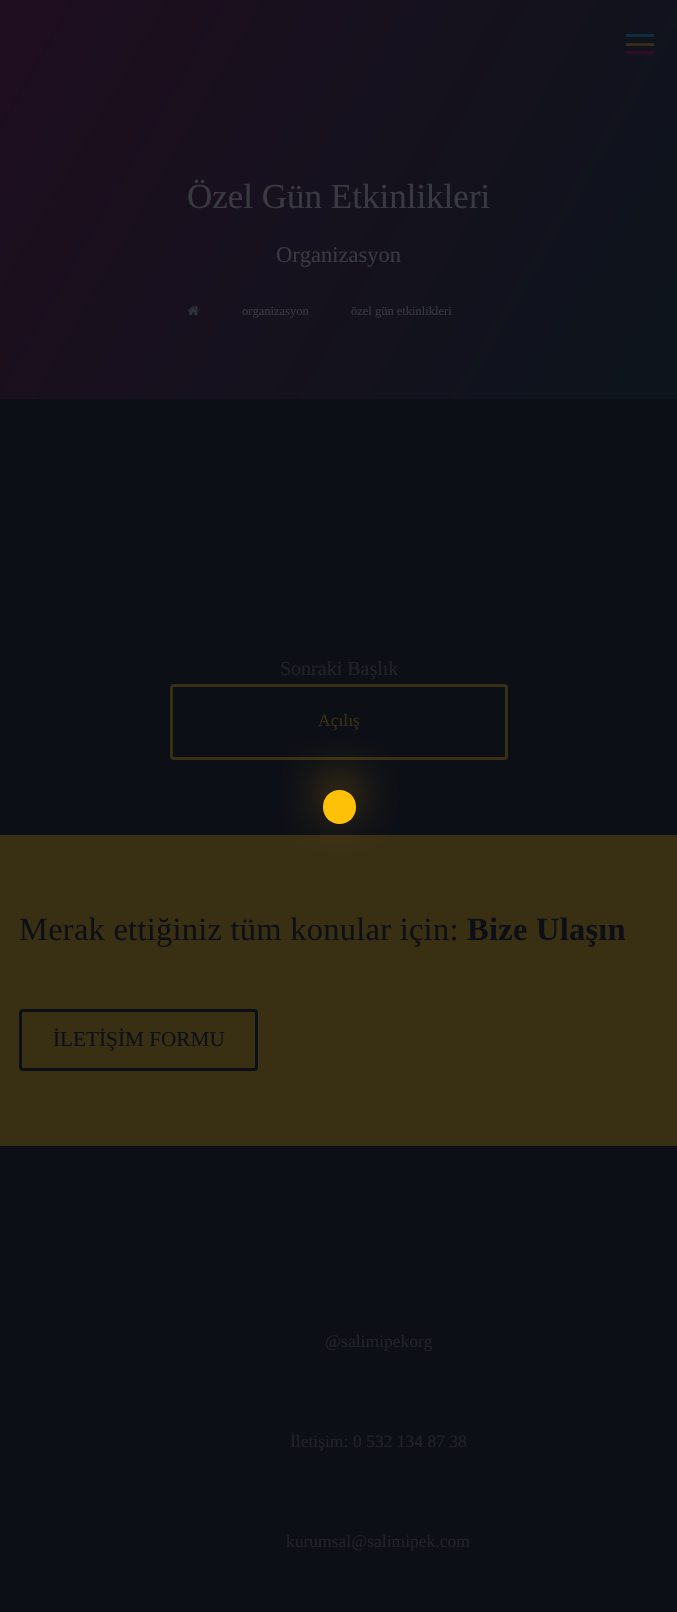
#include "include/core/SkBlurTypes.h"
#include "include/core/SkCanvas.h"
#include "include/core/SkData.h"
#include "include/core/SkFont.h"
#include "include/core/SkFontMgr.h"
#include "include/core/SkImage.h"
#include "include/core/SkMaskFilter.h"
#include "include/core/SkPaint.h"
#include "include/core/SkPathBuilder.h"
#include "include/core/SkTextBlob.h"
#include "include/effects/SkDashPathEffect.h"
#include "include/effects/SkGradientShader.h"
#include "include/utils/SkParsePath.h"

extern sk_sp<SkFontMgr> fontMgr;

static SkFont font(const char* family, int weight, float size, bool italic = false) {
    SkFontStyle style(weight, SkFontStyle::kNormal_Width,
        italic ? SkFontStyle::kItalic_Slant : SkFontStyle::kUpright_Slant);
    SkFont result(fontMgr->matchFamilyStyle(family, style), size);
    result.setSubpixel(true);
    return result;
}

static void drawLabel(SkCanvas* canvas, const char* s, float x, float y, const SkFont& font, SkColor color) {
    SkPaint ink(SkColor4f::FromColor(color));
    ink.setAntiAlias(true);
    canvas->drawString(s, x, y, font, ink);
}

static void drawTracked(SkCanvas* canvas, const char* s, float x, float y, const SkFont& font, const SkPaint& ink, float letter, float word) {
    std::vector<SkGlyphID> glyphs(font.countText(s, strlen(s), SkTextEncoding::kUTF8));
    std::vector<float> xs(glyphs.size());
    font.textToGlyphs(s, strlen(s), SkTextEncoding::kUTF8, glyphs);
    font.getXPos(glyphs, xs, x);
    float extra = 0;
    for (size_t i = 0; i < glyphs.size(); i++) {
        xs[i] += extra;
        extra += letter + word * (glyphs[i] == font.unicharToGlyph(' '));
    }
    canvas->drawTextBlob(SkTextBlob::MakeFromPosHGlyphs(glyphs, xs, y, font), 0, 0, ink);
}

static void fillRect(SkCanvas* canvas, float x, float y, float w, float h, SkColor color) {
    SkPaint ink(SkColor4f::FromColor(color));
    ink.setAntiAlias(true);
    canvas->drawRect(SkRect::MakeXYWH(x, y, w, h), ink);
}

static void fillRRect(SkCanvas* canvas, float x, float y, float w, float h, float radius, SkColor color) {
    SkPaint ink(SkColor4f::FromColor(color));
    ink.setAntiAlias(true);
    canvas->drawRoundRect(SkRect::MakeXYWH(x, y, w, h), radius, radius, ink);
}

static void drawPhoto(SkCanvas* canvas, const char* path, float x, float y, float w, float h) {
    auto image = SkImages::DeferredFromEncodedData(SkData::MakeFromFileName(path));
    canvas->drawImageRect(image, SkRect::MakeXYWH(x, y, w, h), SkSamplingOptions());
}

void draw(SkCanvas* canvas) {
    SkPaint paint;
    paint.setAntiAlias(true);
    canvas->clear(0xFF0D0F16);
    {
        const SkColor colors[] = {0xFF1F0E1F, 0xFF0C141C};
        const float stops[] = {0, 1};
        const SkPoint ends[] = {{-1.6f, 2.8f}, {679, 396}};
        paint.setShader(SkGradientShader::MakeLinear(ends, colors, stops, 2, SkTileMode::kClamp));
        paint.setAlpha(255);
    }
    canvas->drawRect(SkRect::MakeXYWH(0, 0, 677, 399), paint);
    fillRect(canvas, 626, 34, 28, 3, 0xFF0B3040);
    fillRect(canvas, 626, 43, 28, 3, 0xFF372B13);
    fillRect(canvas, 626, 51, 28, 3, 0xFF310C27);
    SkFont font1 = font("Liberation Serif", 400, 35);
    drawLabel(canvas, "Özel Gün Etkinlikleri", 187, 208, font1, 0xFF393A40);
    SkFont font2 = font("Liberation Serif", 400, 22.5f);
    drawLabel(canvas, "Organizasyon", 276, 262, font2, 0xFF393A40);
    drawPhoto(canvas, "assets/img1.png", 187, 306, 12, 9);
    SkFont font3 = font("Liberation Serif", 400, 12.5f);
    drawLabel(canvas, "organizasyon", 242, 315, font3, 0xFF393A40);
    drawLabel(canvas, "özel gün etkinlikleri", 351, 315, font3, 0xFF393A40);
    SkFont font4 = font("Liberation Serif", 400, 20);
    drawLabel(canvas, "Sonraki Başlık", 280, 675, font4, 0xFF222329);
    paint.setStroke(true);
    paint.setStrokeWidth(3);
    paint.setShader(nullptr);
    paint.setColor(0xFF392F13);
    canvas->drawRoundRect(SkRect::MakeXYWH(171.5f, 685.5f, 335, 73), 2.5f, 2.5f, paint);
    SkFont font5 = font("Liberation Serif", 400, 17.5f);
    drawLabel(canvas, "Açılış", 318, 726, font5, 0xFF392F13);
    fillRect(canvas, 0, 835, 677, 311, 0xFF392F13);
    SkFont font6 = font("Liberation Serif", 400, 32.5f);
    paint.setStroke(false);
    paint.setColor(0xFF0D0F16);
    drawTracked(canvas, "Merak ettiğiniz tüm konular için:", 19, 940, font6, paint, 0.25f, 0);
    SkFont font7 = font("Liberation Serif", 700, 32.5f);
    drawTracked(canvas, "Bize Ulaşın", 467, 940, font7, paint, 0.25f, 0);
    paint.setStroke(true);
    canvas->drawRoundRect(SkRect::MakeXYWH(20.5f, 1010.5f, 236, 59), 2.5f, 2.5f, paint);
    SkFont font8 = font("Liberation Serif", 400, 21.25f);
    drawLabel(canvas, "İLETİŞİM FORMU", 53, 1046, font8, 0xFF0D0F16);
    drawLabel(canvas, "@salimipekorg", 325, 1347, font5, 0xFF222329);
    drawLabel(canvas, "İletişim:", 290, 1447, font5, 0xFF222329);
    drawLabel(canvas, "0 532 134 87 38", 353, 1447, font5, 0xFF222329);
    drawLabel(canvas, "kurumsal@salimipek.com", 286, 1547, font5, 0xFF222329);
    paint.setStroke(false);
    paint.setColor(0xFFFFC107);
    paint.setMaskFilter(SkMaskFilter::MakeBlur(kNormal_SkBlurStyle, 22.5f));
    canvas->drawRoundRect(SkRect::MakeXYWH(328, 784, 22, 22), 11, 11, paint);
    paint.setMaskFilter(nullptr);
    fillRRect(canvas, 323, 790, 33, 34, 16.5f, 0xFFFFC107);
}
